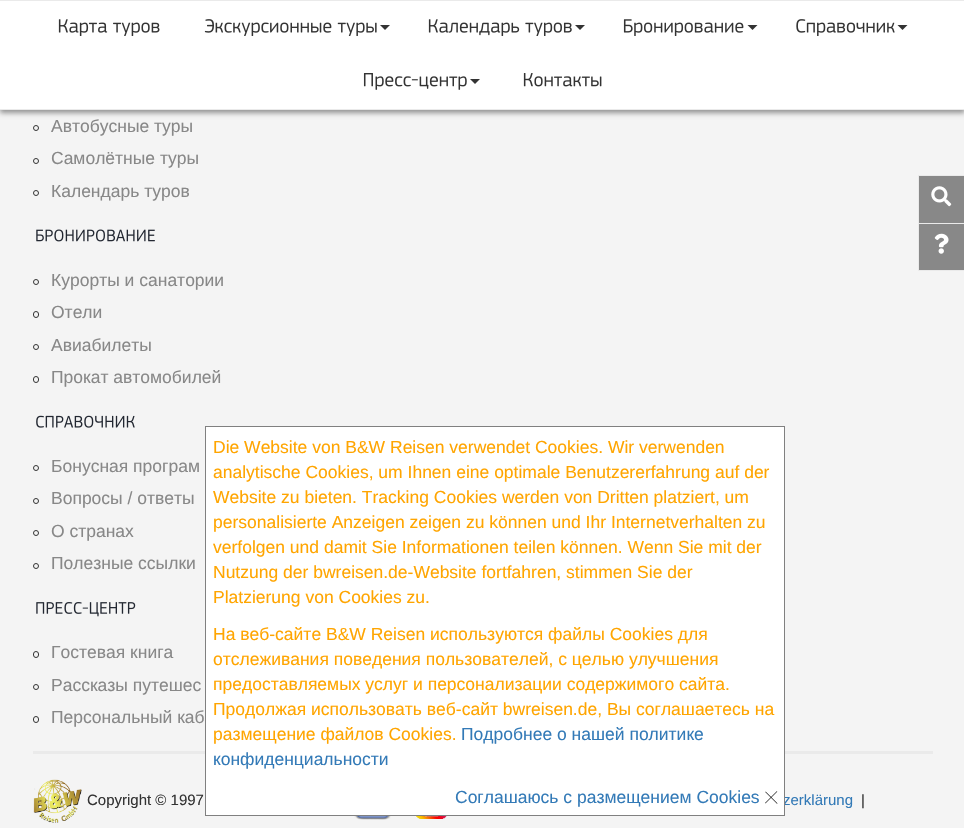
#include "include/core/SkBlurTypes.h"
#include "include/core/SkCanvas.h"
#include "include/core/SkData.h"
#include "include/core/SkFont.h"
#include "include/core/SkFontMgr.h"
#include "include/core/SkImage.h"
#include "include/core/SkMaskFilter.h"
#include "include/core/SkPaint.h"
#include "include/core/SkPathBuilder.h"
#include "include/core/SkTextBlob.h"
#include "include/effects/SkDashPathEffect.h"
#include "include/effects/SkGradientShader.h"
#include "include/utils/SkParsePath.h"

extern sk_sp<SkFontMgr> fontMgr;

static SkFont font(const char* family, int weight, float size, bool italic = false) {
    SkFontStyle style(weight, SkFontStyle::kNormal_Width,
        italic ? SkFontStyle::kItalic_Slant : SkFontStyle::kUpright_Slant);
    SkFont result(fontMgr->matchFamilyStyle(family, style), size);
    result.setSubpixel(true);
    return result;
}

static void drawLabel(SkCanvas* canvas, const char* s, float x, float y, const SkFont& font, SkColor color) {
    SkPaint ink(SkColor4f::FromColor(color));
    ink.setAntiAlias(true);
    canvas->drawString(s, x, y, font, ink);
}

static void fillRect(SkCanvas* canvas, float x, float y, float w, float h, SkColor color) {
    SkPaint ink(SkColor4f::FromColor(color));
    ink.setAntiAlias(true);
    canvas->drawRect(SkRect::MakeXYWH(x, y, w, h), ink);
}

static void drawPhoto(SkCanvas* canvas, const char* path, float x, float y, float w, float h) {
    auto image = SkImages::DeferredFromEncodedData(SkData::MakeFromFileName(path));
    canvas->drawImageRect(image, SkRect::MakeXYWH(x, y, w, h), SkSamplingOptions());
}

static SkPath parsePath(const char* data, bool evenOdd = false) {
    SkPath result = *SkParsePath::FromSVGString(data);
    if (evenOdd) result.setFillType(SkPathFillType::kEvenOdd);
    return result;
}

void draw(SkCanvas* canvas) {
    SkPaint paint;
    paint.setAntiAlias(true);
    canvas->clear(0xFFF4F4F4);
    paint.setColor(0x66000000);
    paint.setMaskFilter(SkMaskFilter::MakeBlur(kNormal_SkBlurStyle, 2.5f));
    canvas->drawRect(SkRect::MakeXYWH(0, 3, 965, 110), paint);
    paint.setMaskFilter(nullptr);
    fillRect(canvas, 0, 1, 964, 108, 0xFFFFFFFF);
    fillRect(canvas, 0, 0, 964, 1, 0xFFEAEAEA);
    fillRect(canvas, 0, 109, 964, 1, 0xFFEAEAEA);
    drawPhoto(canvas, "assets/img1.png", 58, 19, 102, 17);
    drawPhoto(canvas, "assets/img2.png", 204, 19, 173, 17);
    paint.setColor(0xFF333333);
    canvas->drawPath(parsePath("M380 25H390L385 30Z"), paint);
    drawPhoto(canvas, "assets/img3.png", 428, 19, 144, 17);
    canvas->drawPath(parsePath("M575 25H585L580 30Z"), paint);
    drawPhoto(canvas, "assets/img4.png", 623, 19, 121, 17);
    canvas->drawPath(parsePath("M747.5 25H757.5L752.5 30Z"), paint);
    drawPhoto(canvas, "assets/img5.png", 796, 19, 99, 17);
    canvas->drawPath(parsePath("M897.5 25H907.5L902.5 30Z"), paint);
    drawPhoto(canvas, "assets/img6.png", 363, 73, 104, 17);
    canvas->drawPath(parsePath("M470 79H480L475 84Z"), paint);
    drawPhoto(canvas, "assets/img7.png", 523, 73, 79, 14);
    paint.setStroke(true);
    paint.setStrokeWidth(1);
    canvas->drawCircle(36, 128, 2.5f, paint);
    SkFont font1 = font("Liberation Sans", 400, 17.5f);
    drawLabel(canvas, "Автобусные туры", 51, 132, font1, 0xFF888888);
    canvas->drawCircle(36, 161, 2.5f, paint);
    drawLabel(canvas, "Самолётные туры", 51, 164, font1, 0xFF888888);
    canvas->drawCircle(36, 193, 2.5f, paint);
    drawLabel(canvas, "Календарь туров", 51, 197, font1, 0xFF888888);
    drawPhoto(canvas, "assets/img8.png", 36, 229, 119, 13);
    canvas->drawCircle(36, 282, 2.5f, paint);
    drawLabel(canvas, "Курорты и санатории", 51, 286, font1, 0xFF888888);
    canvas->drawRoundRect(SkRect::MakeXYWH(33.5f, 311.5f, 5, 6), 2.5f, 2.5f, paint);
    drawLabel(canvas, "Отели", 51, 318, font1, 0xFF888888);
    canvas->drawCircle(36, 347, 2.5f, paint);
    drawLabel(canvas, "Авиабилеты", 51, 351, font1, 0xFF888888);
    canvas->drawRoundRect(SkRect::MakeXYWH(33.5f, 376.5f, 5, 6), 2.5f, 2.5f, paint);
    drawLabel(canvas, "Прокат автомобилей", 51, 383, font1, 0xFF888888);
    drawPhoto(canvas, "assets/img9.png", 36, 415, 99, 13);
    canvas->drawCircle(36, 468, 2.5f, paint);
    drawLabel(canvas, "Бонусная програм", 51, 472, font1, 0xFF888888);
    canvas->drawCircle(36, 501, 2.5f, paint);
    drawLabel(canvas, "Вопросы / ответы", 51, 504, font1, 0xFF888888);
    canvas->drawCircle(36, 533, 2.5f, paint);
    drawLabel(canvas, "О странах", 51, 537, font1, 0xFF888888);
    canvas->drawCircle(36, 566, 2.5f, paint);
    drawLabel(canvas, "Полезные ссылки", 51, 569, font1, 0xFF888888);
    drawPhoto(canvas, "assets/img10.png", 36, 602, 100, 15);
    canvas->drawRoundRect(SkRect::MakeXYWH(33.5f, 651.5f, 5, 6), 2.5f, 2.5f, paint);
    drawLabel(canvas, "Гостевая книга", 51, 658, font1, 0xFF888888);
    canvas->drawCircle(36, 687, 2.5f, paint);
    drawLabel(canvas, "Рассказы путешес", 51, 691, font1, 0xFF888888);
    canvas->drawRoundRect(SkRect::MakeXYWH(33.5f, 716.5f, 5, 6), 2.5f, 2.5f, paint);
    drawLabel(canvas, "Персональный каб", 51, 723, font1, 0xFF888888);
    fillRect(canvas, 33, 751, 900, 3, 0xFFEAEAEA);
    drawPhoto(canvas, "assets/img11.png", 33, 779, 49, 44);
    SkFont font2 = font("Liberation Sans", 400, 15);
    drawLabel(canvas, "Copyright © 1997", 87, 805, font2, 0xFF333333);
    drawLabel(canvas, "zerklärung", 783, 805, font2, 0xFF337AB7);
    drawLabel(canvas, "|", 861, 805, font2, 0xFF333333);
    drawPhoto(canvas, "assets/img12.png", 354, 816, 37, 4);
    drawPhoto(canvas, "assets/img13.png", 416, 816, 31, 3);
    paint.setStroke(false);
    paint.setColor(0xFF888888);
    canvas->drawRect(SkRect::MakeXYWH(918.5f, 175.5f, 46, 48), paint);
    paint.setStroke(true);
    paint.setColor(0xFFEAEAEA);
    canvas->drawRect(SkRect::MakeXYWH(918.5f, 175.5f, 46, 48), paint);
    drawPhoto(canvas, "assets/img14.png", 931, 186, 21, 21);
    paint.setStroke(false);
    paint.setColor(0xFF888888);
    canvas->drawRect(SkRect::MakeXYWH(918.5f, 223.5f, 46, 47), paint);
    paint.setStroke(true);
    paint.setColor(0xFFEAEAEA);
    canvas->drawRect(SkRect::MakeXYWH(918.5f, 223.5f, 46, 47), paint);
    drawPhoto(canvas, "assets/img15.png", 934, 233, 15, 21);
    paint.setStroke(false);
    paint.setColor(0xFFFFFFFF);
    canvas->drawRect(SkRect::MakeXYWH(205.5f, 426.5f, 579, 389), paint);
    paint.setStroke(true);
    paint.setColor(0xFF808080);
    canvas->drawRect(SkRect::MakeXYWH(205.5f, 426.5f, 579, 389), paint);
    drawLabel(canvas, "Die Website von B&W Reisen verwendet Cookies. Wir verwenden", 213, 453, font1, 0xFFFFA500);
    drawLabel(canvas, "analytische Cookies, um Ihnen eine optimale Benutzererfahrung auf der", 213, 478, font1, 0xFFFFA500);
    drawLabel(canvas, "Website zu bieten. Tracking Cookies werden von Dritten platziert, um", 213, 503, font1, 0xFFFFA500);
    drawLabel(canvas, "personalisierte Anzeigen zeigen zu können und Ihr Internetverhalten zu", 213, 528, font1, 0xFFFFA500);
    drawLabel(canvas, "verfolgen und damit Sie Informationen teilen können. Wenn Sie mit der", 213, 553, font1, 0xFFFFA500);
    drawLabel(canvas, "Nutzung der bwreisen.de-Website fortfahren, stimmen Sie der", 213, 578, font1, 0xFFFFA500);
    drawLabel(canvas, "Platzierung von Cookies zu.", 213, 603, font1, 0xFFFFA500);
    drawLabel(canvas, "На веб-сайте B&W Reisen используются файлы Cookies для", 213, 640, font1, 0xFFFFA500);
    drawLabel(canvas, "отслеживания поведения пользователей, с целью улучшения", 213, 665, font1, 0xFFFFA500);
    drawLabel(canvas, "предоставляемых услуг и персонализации содержимого сайта.", 213, 690, font1, 0xFFFFA500);
    drawLabel(canvas, "Продолжая использовать веб-сайт bwreisen.de, Вы соглашаетесь на", 213, 715, font1, 0xFFFFA500);
    drawLabel(canvas, "размещение файлов Cookies.", 213, 740, font1, 0xFFFFA500);
    drawLabel(canvas, "Подробнее о нашей политике", 461, 740, font1, 0xFF337AB7);
    drawLabel(canvas, "конфиденциальности", 213, 765, font1, 0xFF337AB7);
    drawLabel(canvas, "Соглашаюсь с размещением Cookies", 455, 803, font1, 0xFF337AB7);
    drawPhoto(canvas, "assets/img16.png", 765, 791, 13, 13);
}
